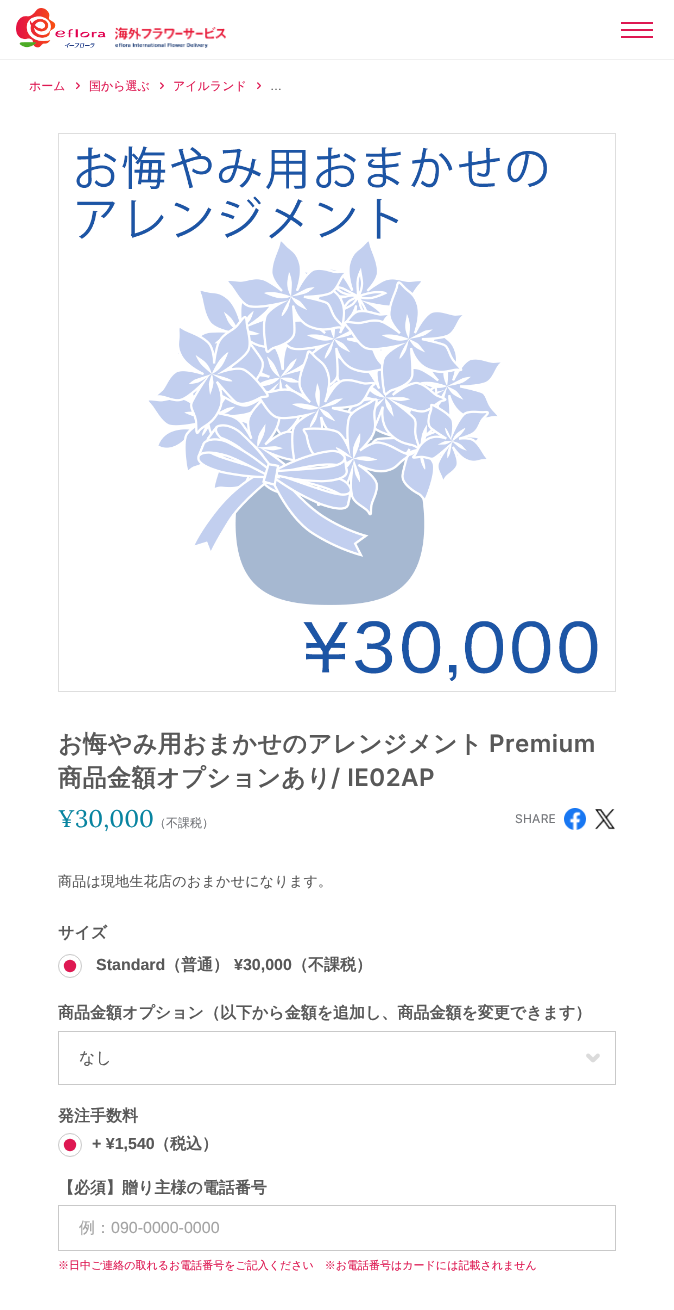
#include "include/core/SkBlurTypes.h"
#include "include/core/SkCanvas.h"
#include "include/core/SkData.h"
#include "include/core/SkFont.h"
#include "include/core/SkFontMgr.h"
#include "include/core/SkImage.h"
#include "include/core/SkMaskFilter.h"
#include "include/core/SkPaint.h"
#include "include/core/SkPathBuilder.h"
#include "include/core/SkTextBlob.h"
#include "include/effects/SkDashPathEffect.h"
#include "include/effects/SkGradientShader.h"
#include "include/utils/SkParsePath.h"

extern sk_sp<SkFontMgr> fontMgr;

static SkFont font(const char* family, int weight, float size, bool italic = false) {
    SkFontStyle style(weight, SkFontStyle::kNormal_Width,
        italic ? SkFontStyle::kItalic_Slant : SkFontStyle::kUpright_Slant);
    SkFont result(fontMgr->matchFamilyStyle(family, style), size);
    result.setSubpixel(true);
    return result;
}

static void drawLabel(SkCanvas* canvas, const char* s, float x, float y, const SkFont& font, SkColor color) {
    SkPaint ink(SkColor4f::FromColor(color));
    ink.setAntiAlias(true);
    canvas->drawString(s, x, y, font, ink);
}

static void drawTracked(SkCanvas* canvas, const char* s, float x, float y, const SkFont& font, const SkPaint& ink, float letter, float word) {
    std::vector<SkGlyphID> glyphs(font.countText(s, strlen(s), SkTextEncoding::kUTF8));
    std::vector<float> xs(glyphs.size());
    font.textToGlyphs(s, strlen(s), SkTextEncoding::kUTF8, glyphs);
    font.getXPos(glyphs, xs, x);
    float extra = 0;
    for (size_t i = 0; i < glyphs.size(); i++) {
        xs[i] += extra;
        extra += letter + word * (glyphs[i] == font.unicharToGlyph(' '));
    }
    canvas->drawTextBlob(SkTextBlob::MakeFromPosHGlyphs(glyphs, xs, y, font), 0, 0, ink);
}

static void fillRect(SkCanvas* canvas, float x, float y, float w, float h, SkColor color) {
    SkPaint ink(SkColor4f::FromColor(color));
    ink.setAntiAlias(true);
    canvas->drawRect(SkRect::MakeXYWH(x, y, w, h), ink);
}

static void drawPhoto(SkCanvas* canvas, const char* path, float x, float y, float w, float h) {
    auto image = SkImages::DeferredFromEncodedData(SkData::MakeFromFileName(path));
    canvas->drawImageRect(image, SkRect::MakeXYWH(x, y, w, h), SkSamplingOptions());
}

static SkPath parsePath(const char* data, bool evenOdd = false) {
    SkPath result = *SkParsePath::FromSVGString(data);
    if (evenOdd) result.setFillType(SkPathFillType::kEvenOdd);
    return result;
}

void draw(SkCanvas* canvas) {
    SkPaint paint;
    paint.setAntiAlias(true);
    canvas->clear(0xFFFFFFFF);
    fillRect(canvas, 0, 59, 674, 1, 0xFFF0F0F0);
    drawPhoto(canvas, "assets/img1.png", 16, 8, 90, 40);
    drawPhoto(canvas, "assets/img2.png", 115, 27, 111, 21);
    fillRect(canvas, 621, 22, 32, 2, 0xFFDE1852);
    fillRect(canvas, 621, 29, 32, 2, 0xFFDE1852);
    fillRect(canvas, 621, 36, 32, 2, 0xFFDE1852);
    SkFont font1 = font("WenQuanYi Zen Hei", 500, 12);
    drawLabel(canvas, "ホーム", 29, 90, font1, 0xFFDE1852);
    drawPhoto(canvas, "assets/img3.png", 76, 82, 4, 8);
    drawLabel(canvas, "国から選ぶ", 89, 90, font1, 0xFFDE1852);
    drawPhoto(canvas, "assets/img4.png", 160, 82, 4, 8);
    drawLabel(canvas, "アイルランド", 173, 90, font1, 0xFFDE1852);
    drawPhoto(canvas, "assets/img5.png", 257, 82, 4, 8);
    SkFont font2 = font("Liberation Sans", 400, 12);
    drawLabel(canvas, "…", 270, 90, font2, 0xFF585858);
    paint.setStroke(true);
    paint.setStrokeWidth(1);
    paint.setColor(0xFFDEDEDE);
    canvas->drawRect(SkRect::MakeXYWH(58.5f, 133.5f, 557, 558), paint);
    drawPhoto(canvas, "assets/img6.png", 76, 146, 522, 535);
    SkFont font3 = font("WenQuanYi Zen Hei", 700, 24);
    paint.setStroke(false);
    paint.setColor(0xFF585858);
    drawTracked(canvas, "お悔やみ用おまかせのアレンジメント", 58, 752, font3, paint, 0.5f, 0);
    SkFont font4 = font("Inter", 600, 24);
    drawTracked(canvas, "Premium", 489, 752, font4, paint, 0.5f, 0);
    drawTracked(canvas, "商品金額オプションあり", 58, 786, font3, paint, 0.5f, 0);
    drawTracked(canvas, "/ IE02AP", 331, 786, font4, paint, 0.5f, 0);
    SkFont font5 = font("Lora", 400, 24);
    drawLabel(canvas, "¥30,000", 58, 827, font5, 0xFF0884A0);
    drawLabel(canvas, "（不課税）", 154, 827, font1, 0xFF737579);
    SkFont font6 = font("Inter", 400, 12);
    paint.setColor(0xFF737579);
    drawTracked(canvas, "SHARE", 515, 823, font6, paint, 0.25f, 0);
    drawPhoto(canvas, "assets/img7.png", 564, 808, 22, 22);
    drawPhoto(canvas, "assets/img8.png", 595, 809, 20, 21);
    SkFont font7 = font("WenQuanYi Zen Hei", 500, 14);
    paint.setColor(0xFF585858);
    drawTracked(canvas, "商品は現地生花店のおまかせになります。", 58, 886, font7, paint, 0.25f, 0);
    SkFont font8 = font("WenQuanYi Zen Hei", 700, 16);
    drawLabel(canvas, "サイズ", 58, 938, font8, 0xFF585858);
    paint.setStroke(true);
    paint.setStrokeWidth(12.4f);
    paint.setStrokeCap(SkPaint::kRound_Cap);
    paint.setColor(0xFFDE1852);
    paint.setPathEffect(SkDashPathEffect::Make({{0, 22}}, 0));
    canvas->drawPath(parsePath("M70 966H70.2"), paint);
    paint.setPathEffect(nullptr);
    paint.setStrokeWidth(1);
    paint.setStrokeCap(SkPaint::kButt_Cap);
    paint.setColor(0xFFC9C9C9);
    canvas->drawCircle(70, 966, 11.5f, paint);
    SkFont font9 = font("Liberation Sans", 700, 16);
    drawLabel(canvas, "Standard", 96, 970, font9, 0xFF585858);
    drawLabel(canvas, "（普通）", 165, 970, font8, 0xFF585858);
    drawLabel(canvas, "¥30,000", 234, 970, font9, 0xFF585858);
    drawLabel(canvas, "（不課税）", 292, 970, font8, 0xFF585858);
    drawLabel(canvas, "商品金額オプション（以下から金額を追加し、商品金額を変更できます）", 58, 1018, font8, 0xFF585858);
    canvas->drawRect(SkRect::MakeXYWH(58.5f, 1031.5f, 557, 53), paint);
    SkFont font10 = font("WenQuanYi Zen Hei", 500, 16);
    drawLabel(canvas, "なし", 79, 1063, font10, 0xFF585858);
    drawPhoto(canvas, "assets/img9.png", 586, 1053, 14, 10);
    drawLabel(canvas, "発注手数料", 58, 1121, font8, 0xFF585858);
    paint.setStrokeWidth(12.4f);
    paint.setStrokeCap(SkPaint::kRound_Cap);
    paint.setColor(0xFFDE1852);
    paint.setPathEffect(SkDashPathEffect::Make({{0, 22}}, 0));
    canvas->drawPath(parsePath("M70 1145H70.2"), paint);
    paint.setPathEffect(nullptr);
    paint.setStrokeWidth(1);
    paint.setStrokeCap(SkPaint::kButt_Cap);
    paint.setColor(0xFFC9C9C9);
    canvas->drawCircle(70, 1145, 11.5f, paint);
    drawLabel(canvas, "+ ¥1,540", 92, 1149, font9, 0xFF585858);
    drawLabel(canvas, "（税込）", 154, 1149, font8, 0xFF585858);
    drawLabel(canvas, "【必須】贈り主様の電話番号", 58, 1193, font8, 0xFF585858);
    canvas->drawRect(SkRect::MakeXYWH(58.5f, 1205.5f, 557, 45), paint);
    drawLabel(canvas, "例：", 79, 1233, font10, 0xFFA3A3A3);
    SkFont font11 = font("Liberation Sans", 400, 16);
    drawLabel(canvas, "090-0000-0000", 111, 1233, font11, 0xFFA3A3A3);
    SkFont font12 = font("WenQuanYi Zen Hei", 500, 11);
    drawLabel(canvas, "※日中ご連絡の取れるお電話番号をご記入ください　※お電話番号はカードには記載されません", 58, 1269, font12, 0xFFDE1852);
}
